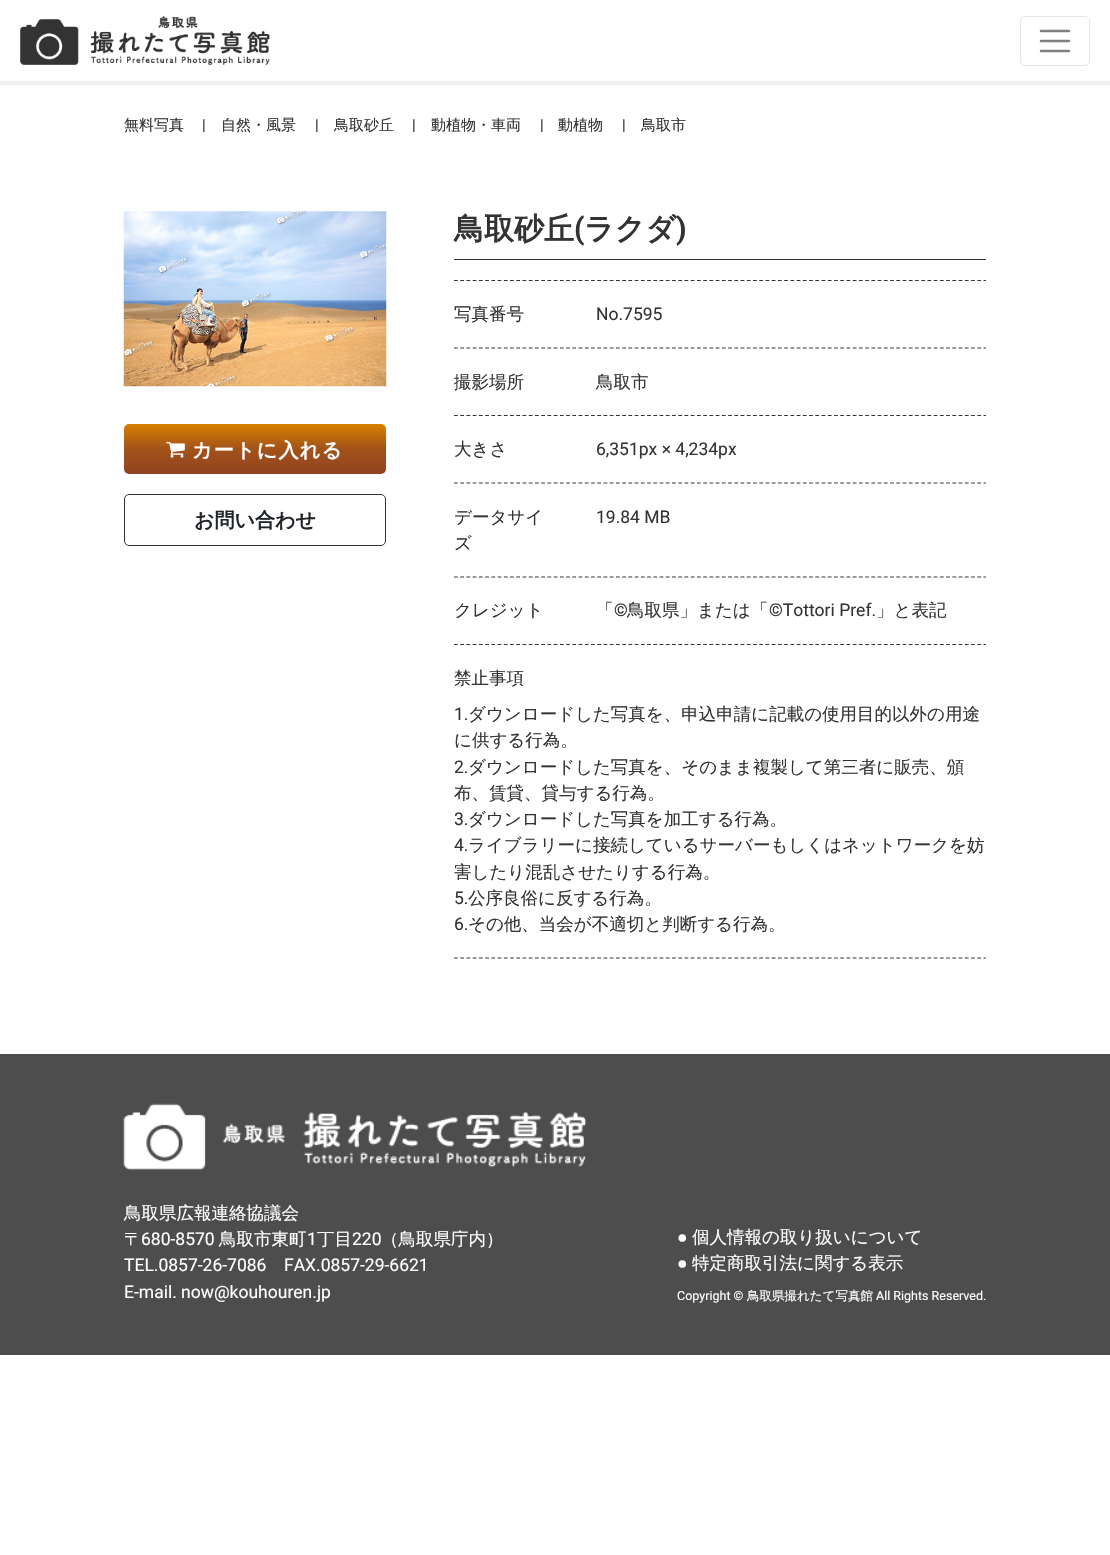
#include "include/core/SkBlurTypes.h"
#include "include/core/SkCanvas.h"
#include "include/core/SkData.h"
#include "include/core/SkFont.h"
#include "include/core/SkFontMgr.h"
#include "include/core/SkImage.h"
#include "include/core/SkMaskFilter.h"
#include "include/core/SkPaint.h"
#include "include/core/SkPathBuilder.h"
#include "include/core/SkTextBlob.h"
#include "include/effects/SkDashPathEffect.h"
#include "include/effects/SkGradientShader.h"
#include "include/utils/SkParsePath.h"

extern sk_sp<SkFontMgr> fontMgr;

static SkFont font(const char* family, int weight, float size, bool italic = false) {
    SkFontStyle style(weight, SkFontStyle::kNormal_Width,
        italic ? SkFontStyle::kItalic_Slant : SkFontStyle::kUpright_Slant);
    SkFont result(fontMgr->matchFamilyStyle(family, style), size);
    result.setSubpixel(true);
    return result;
}

static void drawLabel(SkCanvas* canvas, const char* s, float x, float y, const SkFont& font, SkColor color) {
    SkPaint ink(SkColor4f::FromColor(color));
    ink.setAntiAlias(true);
    canvas->drawString(s, x, y, font, ink);
}

static void drawTracked(SkCanvas* canvas, const char* s, float x, float y, const SkFont& font, const SkPaint& ink, float letter, float word) {
    std::vector<SkGlyphID> glyphs(font.countText(s, strlen(s), SkTextEncoding::kUTF8));
    std::vector<float> xs(glyphs.size());
    font.textToGlyphs(s, strlen(s), SkTextEncoding::kUTF8, glyphs);
    font.getXPos(glyphs, xs, x);
    float extra = 0;
    for (size_t i = 0; i < glyphs.size(); i++) {
        xs[i] += extra;
        extra += letter + word * (glyphs[i] == font.unicharToGlyph(' '));
    }
    canvas->drawTextBlob(SkTextBlob::MakeFromPosHGlyphs(glyphs, xs, y, font), 0, 0, ink);
}

static void fillRect(SkCanvas* canvas, float x, float y, float w, float h, SkColor color) {
    SkPaint ink(SkColor4f::FromColor(color));
    ink.setAntiAlias(true);
    canvas->drawRect(SkRect::MakeXYWH(x, y, w, h), ink);
}

static void drawPhoto(SkCanvas* canvas, const char* path, float x, float y, float w, float h) {
    auto image = SkImages::DeferredFromEncodedData(SkData::MakeFromFileName(path));
    canvas->drawImageRect(image, SkRect::MakeXYWH(x, y, w, h), SkSamplingOptions());
}

static SkPath parsePath(const char* data, bool evenOdd = false) {
    SkPath result = *SkParsePath::FromSVGString(data);
    if (evenOdd) result.setFillType(SkPathFillType::kEvenOdd);
    return result;
}

void draw(SkCanvas* canvas) {
    SkPaint paint;
    paint.setAntiAlias(true);
    canvas->clear(0xFFFFFFFF);
    fillRect(canvas, 0, 81, 1110, 4, 0xFFEFEFEF);
    drawPhoto(canvas, "assets/img1.png", 20, 16, 250, 49);
    paint.setStroke(true);
    paint.setStrokeWidth(1);
    paint.setColor(0xFFE6E6E6);
    canvas->drawRoundRect(SkRect::MakeXYWH(1020.5f, 16.5f, 69, 49), 4.5f, 4.5f, paint);
    paint.setStrokeWidth(2.5f);
    paint.setStrokeCap(SkPaint::kRound_Cap);
    paint.setColor(0xFF808080);
    canvas->drawPath(parsePath("M1041 31H1069M1041 41H1069M1041 51H1069"), paint);
    SkFont font1 = font("WenQuanYi Zen Hei", 500, 15);
    drawLabel(canvas, "無料写真", 124, 130, font1, 0xFF333333);
    SkFont font2 = font("Roboto", 400, 15);
    drawLabel(canvas, "|", 202, 130, font2, 0xFF333333);
    drawLabel(canvas, "自然・風景", 221, 130, font1, 0xFF333333);
    drawLabel(canvas, "|", 315, 130, font2, 0xFF333333);
    drawLabel(canvas, "鳥取砂丘", 334, 130, font1, 0xFF333333);
    drawLabel(canvas, "|", 412, 130, font2, 0xFF333333);
    drawLabel(canvas, "動植物・車両", 431, 130, font1, 0xFF333333);
    drawLabel(canvas, "|", 540, 130, font2, 0xFF333333);
    drawLabel(canvas, "動植物", 558, 130, font1, 0xFF333333);
    drawLabel(canvas, "|", 622, 130, font2, 0xFF333333);
    drawLabel(canvas, "鳥取市", 641, 130, font1, 0xFF333333);
    drawPhoto(canvas, "assets/img2.png", 123, 211, 264, 176);
    paint.setStroke(false);
    {
        const SkColor colors[] = {0xFFD88000, 0xFFA2521A, 0xFF914322};
        const float stops[] = {0, 0.5f, 1};
        const SkPoint ends[] = {{255, 424}, {255, 474}};
        paint.setShader(SkGradientShader::MakeLinear(ends, colors, stops, 3, SkTileMode::kClamp));
        paint.setAlpha(255);
    }
    canvas->drawRoundRect(SkRect::MakeXYWH(124, 424, 262, 50), 5, 5, paint);
    drawPhoto(canvas, "assets/img3.png", 166, 441, 19, 17);
    SkFont font3 = font("WenQuanYi Zen Hei", 700, 20);
    paint.setShader(nullptr);
    paint.setColor(0xFFFFFFFF);
    drawTracked(canvas, "カートに入れる", 192, 457, font3, paint, 1.25f, 0);
    paint.setStroke(true);
    paint.setStrokeWidth(1);
    paint.setStrokeCap(SkPaint::kButt_Cap);
    paint.setColor(0xFF333333);
    canvas->drawRoundRect(SkRect::MakeXYWH(124.5f, 494.5f, 261, 51), 4.5f, 4.5f, paint);
    drawLabel(canvas, "お問い合わせ", 194, 527, font3, 0xFF212529);
    fillRect(canvas, 454, 259, 532, 1, 0xFF333333);
    SkFont font4 = font("WenQuanYi Zen Hei", 700, 30);
    drawLabel(canvas, "鳥取砂丘", 454, 239, font4, 0xFF333333);
    SkFont font5 = font("Roboto", 700, 30);
    drawLabel(canvas, "(", 574, 239, font5, 0xFF333333);
    drawLabel(canvas, "ラクダ", 584, 239, font4, 0xFF333333);
    drawLabel(canvas, ")", 676, 239, font5, 0xFF333333);
    paint.setStrokeWidth(1.2f);
    paint.setPathEffect(SkDashPathEffect::Make({{3.75f, 2.48f}}, 0));
    canvas->drawPath(parsePath("M454 280.5H986"), paint);
    paint.setPathEffect(nullptr);
    SkFont font6 = font("WenQuanYi Zen Hei", 500, 17.5f);
    drawLabel(canvas, "写真番号", 454, 320, font6, 0xFF333333);
    SkFont font7 = font("Roboto", 400, 17.5f);
    drawLabel(canvas, "No.7595", 596, 320, font7, 0xFF333333);
    paint.setPathEffect(SkDashPathEffect::Make({{3.75f, 2.48f}}, 0));
    canvas->drawPath(parsePath("M454 348H986"), paint);
    paint.setPathEffect(nullptr);
    drawLabel(canvas, "撮影場所", 454, 388, font6, 0xFF333333);
    drawLabel(canvas, "鳥取市", 596, 388, font6, 0xFF333333);
    paint.setPathEffect(SkDashPathEffect::Make({{3.75f, 2.48f}}, 0));
    canvas->drawPath(parsePath("M454 415.5H986"), paint);
    paint.setPathEffect(nullptr);
    drawLabel(canvas, "大きさ", 454, 455, font6, 0xFF333333);
    drawLabel(canvas, "6,351px × 4,234px", 596, 455, font7, 0xFF333333);
    paint.setPathEffect(SkDashPathEffect::Make({{3.75f, 2.48f}}, 0));
    canvas->drawPath(parsePath("M454 483H986"), paint);
    paint.setPathEffect(nullptr);
    drawLabel(canvas, "データサイ", 454, 523, font6, 0xFF333333);
    drawLabel(canvas, "ズ", 454, 549, font6, 0xFF333333);
    drawLabel(canvas, "19.84 MB", 596, 523, font7, 0xFF333333);
    paint.setPathEffect(SkDashPathEffect::Make({{3.75f, 2.48f}}, 0));
    canvas->drawPath(parsePath("M454 577H986"), paint);
    paint.setPathEffect(nullptr);
    drawLabel(canvas, "クレジット", 454, 616, font6, 0xFF333333);
    drawLabel(canvas, "「", 596, 616, font6, 0xFF333333);
    drawLabel(canvas, "©", 614, 616, font7, 0xFF333333);
    drawLabel(canvas, "鳥取県」または「", 627, 616, font6, 0xFF333333);
    drawLabel(canvas, "©Tottori Pref.", 769, 616, font7, 0xFF333333);
    drawLabel(canvas, "」と表記", 876, 616, font6, 0xFF333333);
    paint.setPathEffect(SkDashPathEffect::Make({{3.75f, 2.48f}}, 0));
    canvas->drawPath(parsePath("M454 644.5H986"), paint);
    paint.setPathEffect(nullptr);
    drawLabel(canvas, "禁止事項", 454, 684, font6, 0xFF333333);
    drawLabel(canvas, "1.", 454, 720, font7, 0xFF333333);
    drawLabel(canvas, "ダウンロードした写真を、申込申請に記載の使用目的以外の用途", 468, 720, font6, 0xFF333333);
    drawLabel(canvas, "に供する行為。", 454, 746, font6, 0xFF333333);
    drawLabel(canvas, "2.", 454, 773, font7, 0xFF333333);
    drawLabel(canvas, "ダウンロードした写真を、そのまま複製して第三者に販売、頒", 468, 773, font6, 0xFF333333);
    drawLabel(canvas, "布、賃貸、貸与する行為。", 454, 799, font6, 0xFF333333);
    drawLabel(canvas, "3.", 454, 825, font7, 0xFF333333);
    drawLabel(canvas, "ダウンロードした写真を加工する行為。", 468, 825, font6, 0xFF333333);
    drawLabel(canvas, "4.", 454, 851, font7, 0xFF333333);
    drawLabel(canvas, "ライブラリーに接続しているサーバーもしくはネットワークを妨", 468, 851, font6, 0xFF333333);
    drawLabel(canvas, "害したり混乱させたりする行為。", 454, 878, font6, 0xFF333333);
    drawLabel(canvas, "5.", 454, 904, font7, 0xFF333333);
    drawLabel(canvas, "公序良俗に反する行為。", 468, 904, font6, 0xFF333333);
    drawLabel(canvas, "6.", 454, 930, font7, 0xFF333333);
    drawLabel(canvas, "その他、当会が不適切と判断する行為。", 468, 930, font6, 0xFF333333);
    paint.setPathEffect(SkDashPathEffect::Make({{3.75f, 2.48f}}, 0));
    canvas->drawPath(parsePath("M454 958H986"), paint);
    paint.setPathEffect(nullptr);
    fillRect(canvas, 0, 1054, 1110, 301, 0xFF4D4D4D);
    drawPhoto(canvas, "assets/img4.png", 123, 1103, 464, 67);
    drawLabel(canvas, "鳥取県広報連絡協議会", 124, 1219, font6, 0xFFFFFFFF);
    drawLabel(canvas, "〒", 124, 1245, font6, 0xFFFFFFFF);
    drawLabel(canvas, "680-8570", 141, 1245, font7, 0xFFFFFFFF);
    drawLabel(canvas, "鳥取市東町", 219, 1245, font6, 0xFFFFFFFF);
    drawLabel(canvas, "1", 307, 1245, font7, 0xFFFFFFFF);
    drawLabel(canvas, "丁目", 317, 1245, font6, 0xFFFFFFFF);
    drawLabel(canvas, "220", 352, 1245, font7, 0xFFFFFFFF);
    drawLabel(canvas, "（鳥取県庁内）", 381, 1245, font6, 0xFFFFFFFF);
    drawLabel(canvas, "TEL.0857-26-7086", 124, 1271, font7, 0xFFFFFFFF);
    drawLabel(canvas, "FAX.0857-29-6621", 284, 1271, font7, 0xFFFFFFFF);
    drawLabel(canvas, "E-mail. now@kouhouren.jp", 124, 1298, font7, 0xFFFFFFFF);
    SkFont font8 = font("Liberation Sans", 400, 17.5f);
    drawLabel(canvas, "●", 677, 1243, font8, 0xFFFFFFFF);
    drawLabel(canvas, "個人情報の取り扱いについて", 692, 1243, font6, 0xFFFFFFFF);
    drawLabel(canvas, "●", 677, 1269, font8, 0xFFFFFFFF);
    drawLabel(canvas, "特定商取引法に関する表示", 692, 1269, font6, 0xFFFFFFFF);
    SkFont font9 = font("Roboto", 400, 12.5f);
    drawLabel(canvas, "Copyright ©", 677, 1300, font9, 0xFFFFFFFF);
    SkFont font10 = font("WenQuanYi Zen Hei", 500, 12.5f);
    drawLabel(canvas, "鳥取県撮れたて写真館", 747, 1300, font10, 0xFFFFFFFF);
    drawLabel(canvas, "All Rights Reserved.", 876, 1300, font9, 0xFFFFFFFF);
}
